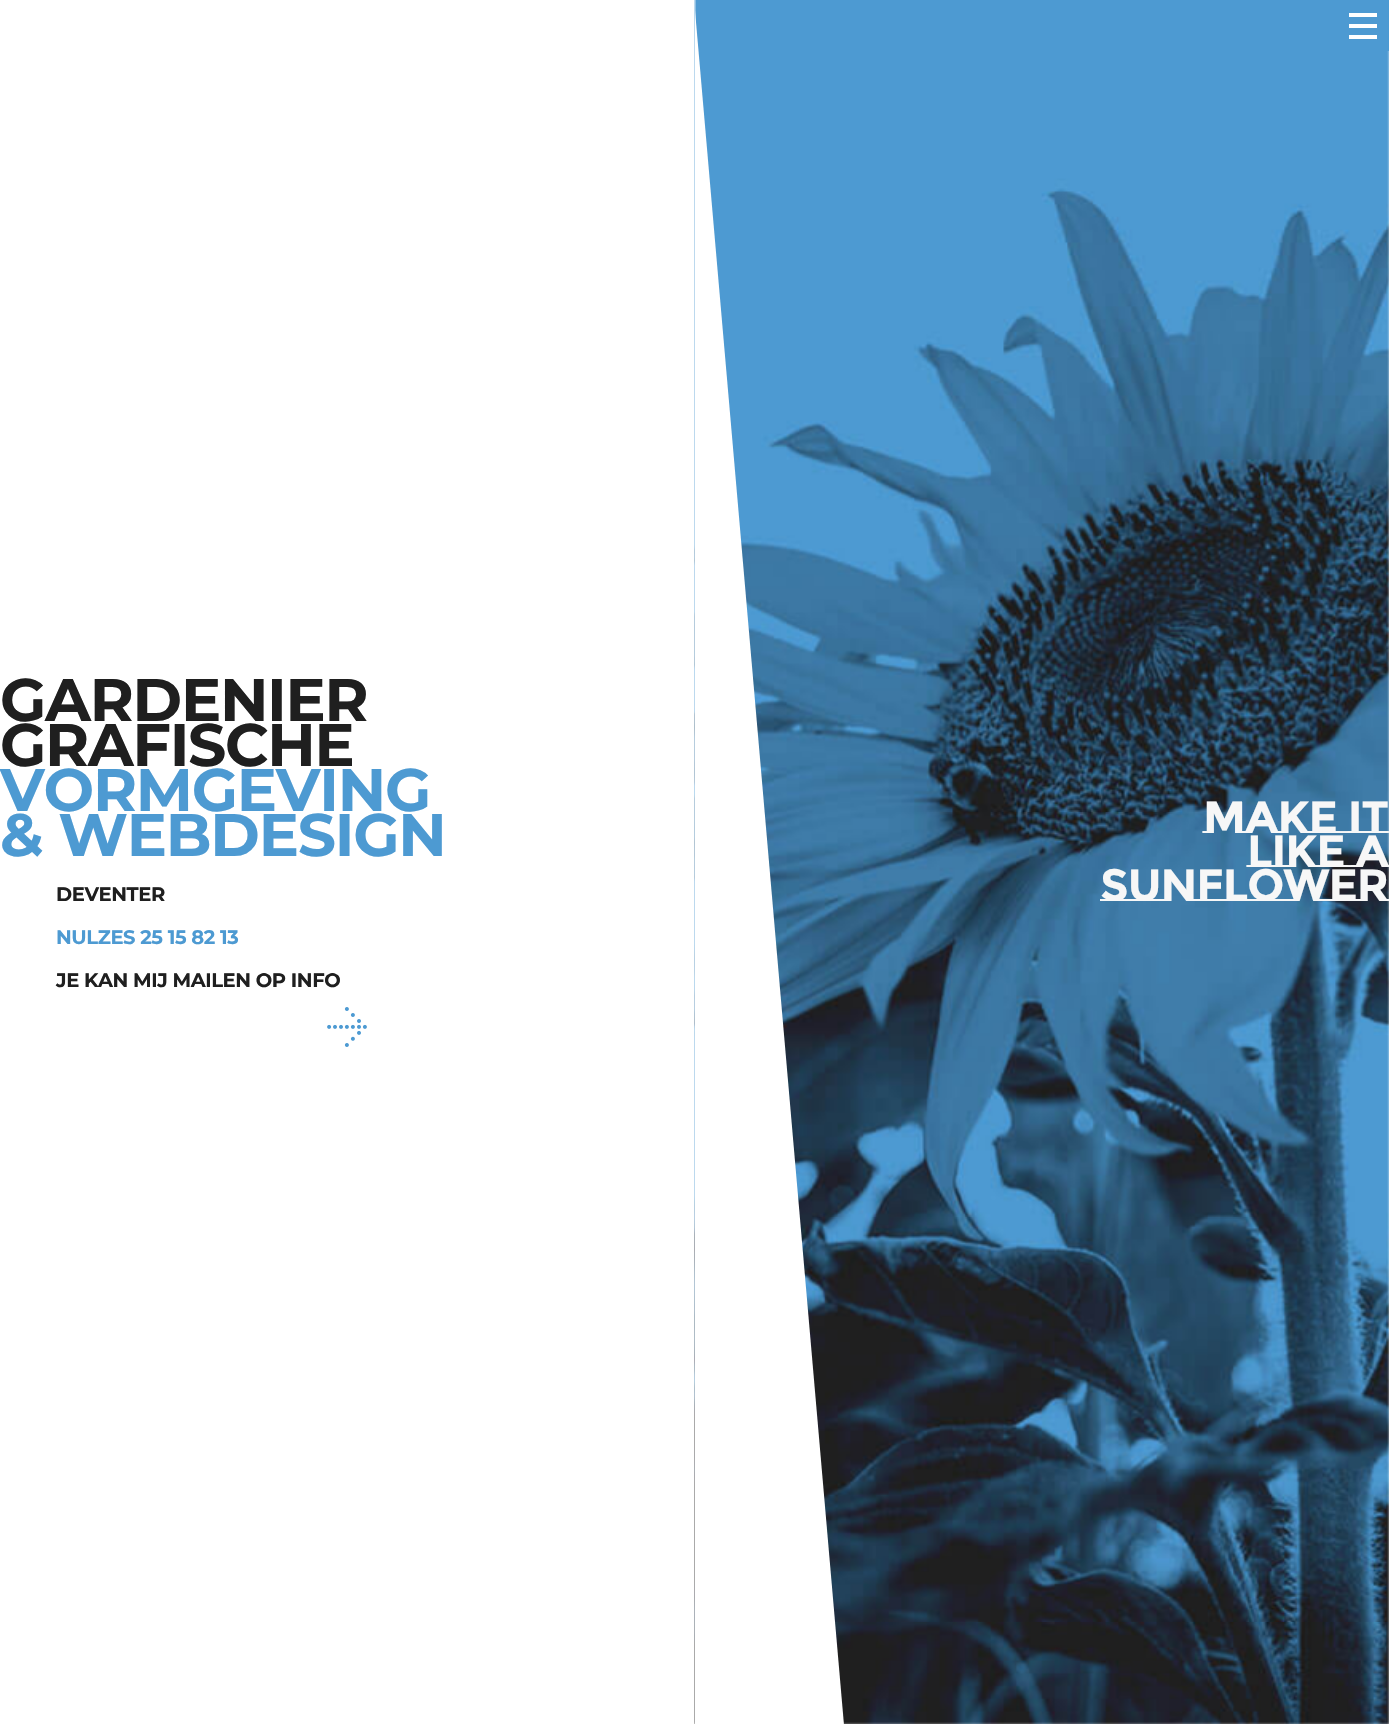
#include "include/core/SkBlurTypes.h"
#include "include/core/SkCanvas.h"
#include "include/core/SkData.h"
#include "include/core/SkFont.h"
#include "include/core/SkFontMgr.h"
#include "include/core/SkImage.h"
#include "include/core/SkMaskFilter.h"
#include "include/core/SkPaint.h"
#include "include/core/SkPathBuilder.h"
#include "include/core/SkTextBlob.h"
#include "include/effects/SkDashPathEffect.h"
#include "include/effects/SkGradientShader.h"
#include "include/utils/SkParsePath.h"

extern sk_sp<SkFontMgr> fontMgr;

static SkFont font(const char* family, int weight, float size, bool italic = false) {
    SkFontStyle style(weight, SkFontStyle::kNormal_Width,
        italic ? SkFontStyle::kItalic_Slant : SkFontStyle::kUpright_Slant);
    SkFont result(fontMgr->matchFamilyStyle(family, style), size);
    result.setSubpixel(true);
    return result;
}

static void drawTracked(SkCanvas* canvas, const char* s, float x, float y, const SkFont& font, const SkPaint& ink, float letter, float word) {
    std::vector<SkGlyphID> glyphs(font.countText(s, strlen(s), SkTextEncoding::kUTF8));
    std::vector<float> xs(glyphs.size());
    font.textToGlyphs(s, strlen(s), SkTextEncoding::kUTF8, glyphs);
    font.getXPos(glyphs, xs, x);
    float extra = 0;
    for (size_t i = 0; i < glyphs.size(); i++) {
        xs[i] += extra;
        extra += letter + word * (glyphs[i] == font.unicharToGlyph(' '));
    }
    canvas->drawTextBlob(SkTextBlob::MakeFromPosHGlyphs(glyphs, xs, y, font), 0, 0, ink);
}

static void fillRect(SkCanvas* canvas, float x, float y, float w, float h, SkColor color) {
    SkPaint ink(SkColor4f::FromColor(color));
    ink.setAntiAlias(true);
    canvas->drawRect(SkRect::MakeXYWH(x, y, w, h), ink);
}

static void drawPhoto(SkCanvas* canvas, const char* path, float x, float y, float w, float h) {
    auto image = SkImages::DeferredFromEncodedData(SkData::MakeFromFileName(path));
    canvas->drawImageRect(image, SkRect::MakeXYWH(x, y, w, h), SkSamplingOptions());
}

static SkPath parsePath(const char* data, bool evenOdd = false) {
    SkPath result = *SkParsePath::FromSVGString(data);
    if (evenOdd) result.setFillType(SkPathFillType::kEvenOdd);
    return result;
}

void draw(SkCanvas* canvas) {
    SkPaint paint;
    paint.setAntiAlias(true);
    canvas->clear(0xFFFFFFFF);
    drawPhoto(canvas, "assets/img2.png", 694, 0, 695, 1724);
    fillRect(canvas, 1387, 0, 2, 51, 0xFF4D9AD2);
    fillRect(canvas, 1349, 35, 28, 4, 0xFFFFFFFF);
    fillRect(canvas, 1349, 13, 28, 4, 0xFFFFFFFF);
    fillRect(canvas, 1349, 24, 28, 4, 0xFFFFFFFF);
    SkFont font1 = font("Montserrat", 700, 60);
    paint.setColor(0xFF1F1F1F);
    drawTracked(canvas, "GARDENIER", 0, 721, font1, paint, -1.25f, 0);
    drawTracked(canvas, "GRAFISCHE", 0, 766, font1, paint, -1.25f, 0);
    paint.setColor(0xFF4D9AD2);
    drawTracked(canvas, "VORMGEVING", 0, 811, font1, paint, -1.25f, 0);
    drawTracked(canvas, "& WEBDESIGN", 0, 856, font1, paint, -1.25f, 0);
    SkFont font2 = font("Montserrat", 700, 19.5f);
    paint.setColor(0xFF1F1F1F);
    drawTracked(canvas, "DEVENTER", 56, 901, font2, paint, -0.4f, 0);
    paint.setColor(0xFF4D9AD2);
    drawTracked(canvas, "NULZES 25 15 82 13", 56, 944, font2, paint, -0.4f, 0);
    paint.setColor(0xFF1F1F1F);
    drawTracked(canvas, "JE KAN MIJ MAILEN OP INFO", 56, 987, font2, paint, -0.4f, 0);
    drawPhoto(canvas, "assets/img1.png", 327, 1007, 40, 40);
    canvas->save();
    canvas->clipRect(SkRect::MakeXYWH(695, 0, 149, 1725));
    paint.setColor(0xFFFFFFFF);
    canvas->drawPath(parsePath("M694-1V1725H844Z"), paint);
    canvas->restore();
    SkFont font3 = font("Montserrat Subrayada", 700, 45);
    paint.setColor(0xFFF7F7F7);
    drawTracked(canvas, "MAKE IT", 1203, 833, font3, paint, -1, 0);
    drawTracked(canvas, "LIKE A", 1247, 867, font3, paint, -1, 0);
    drawTracked(canvas, "SUNFLOWER", 1100, 901, font3, paint, -1, 0);
}
